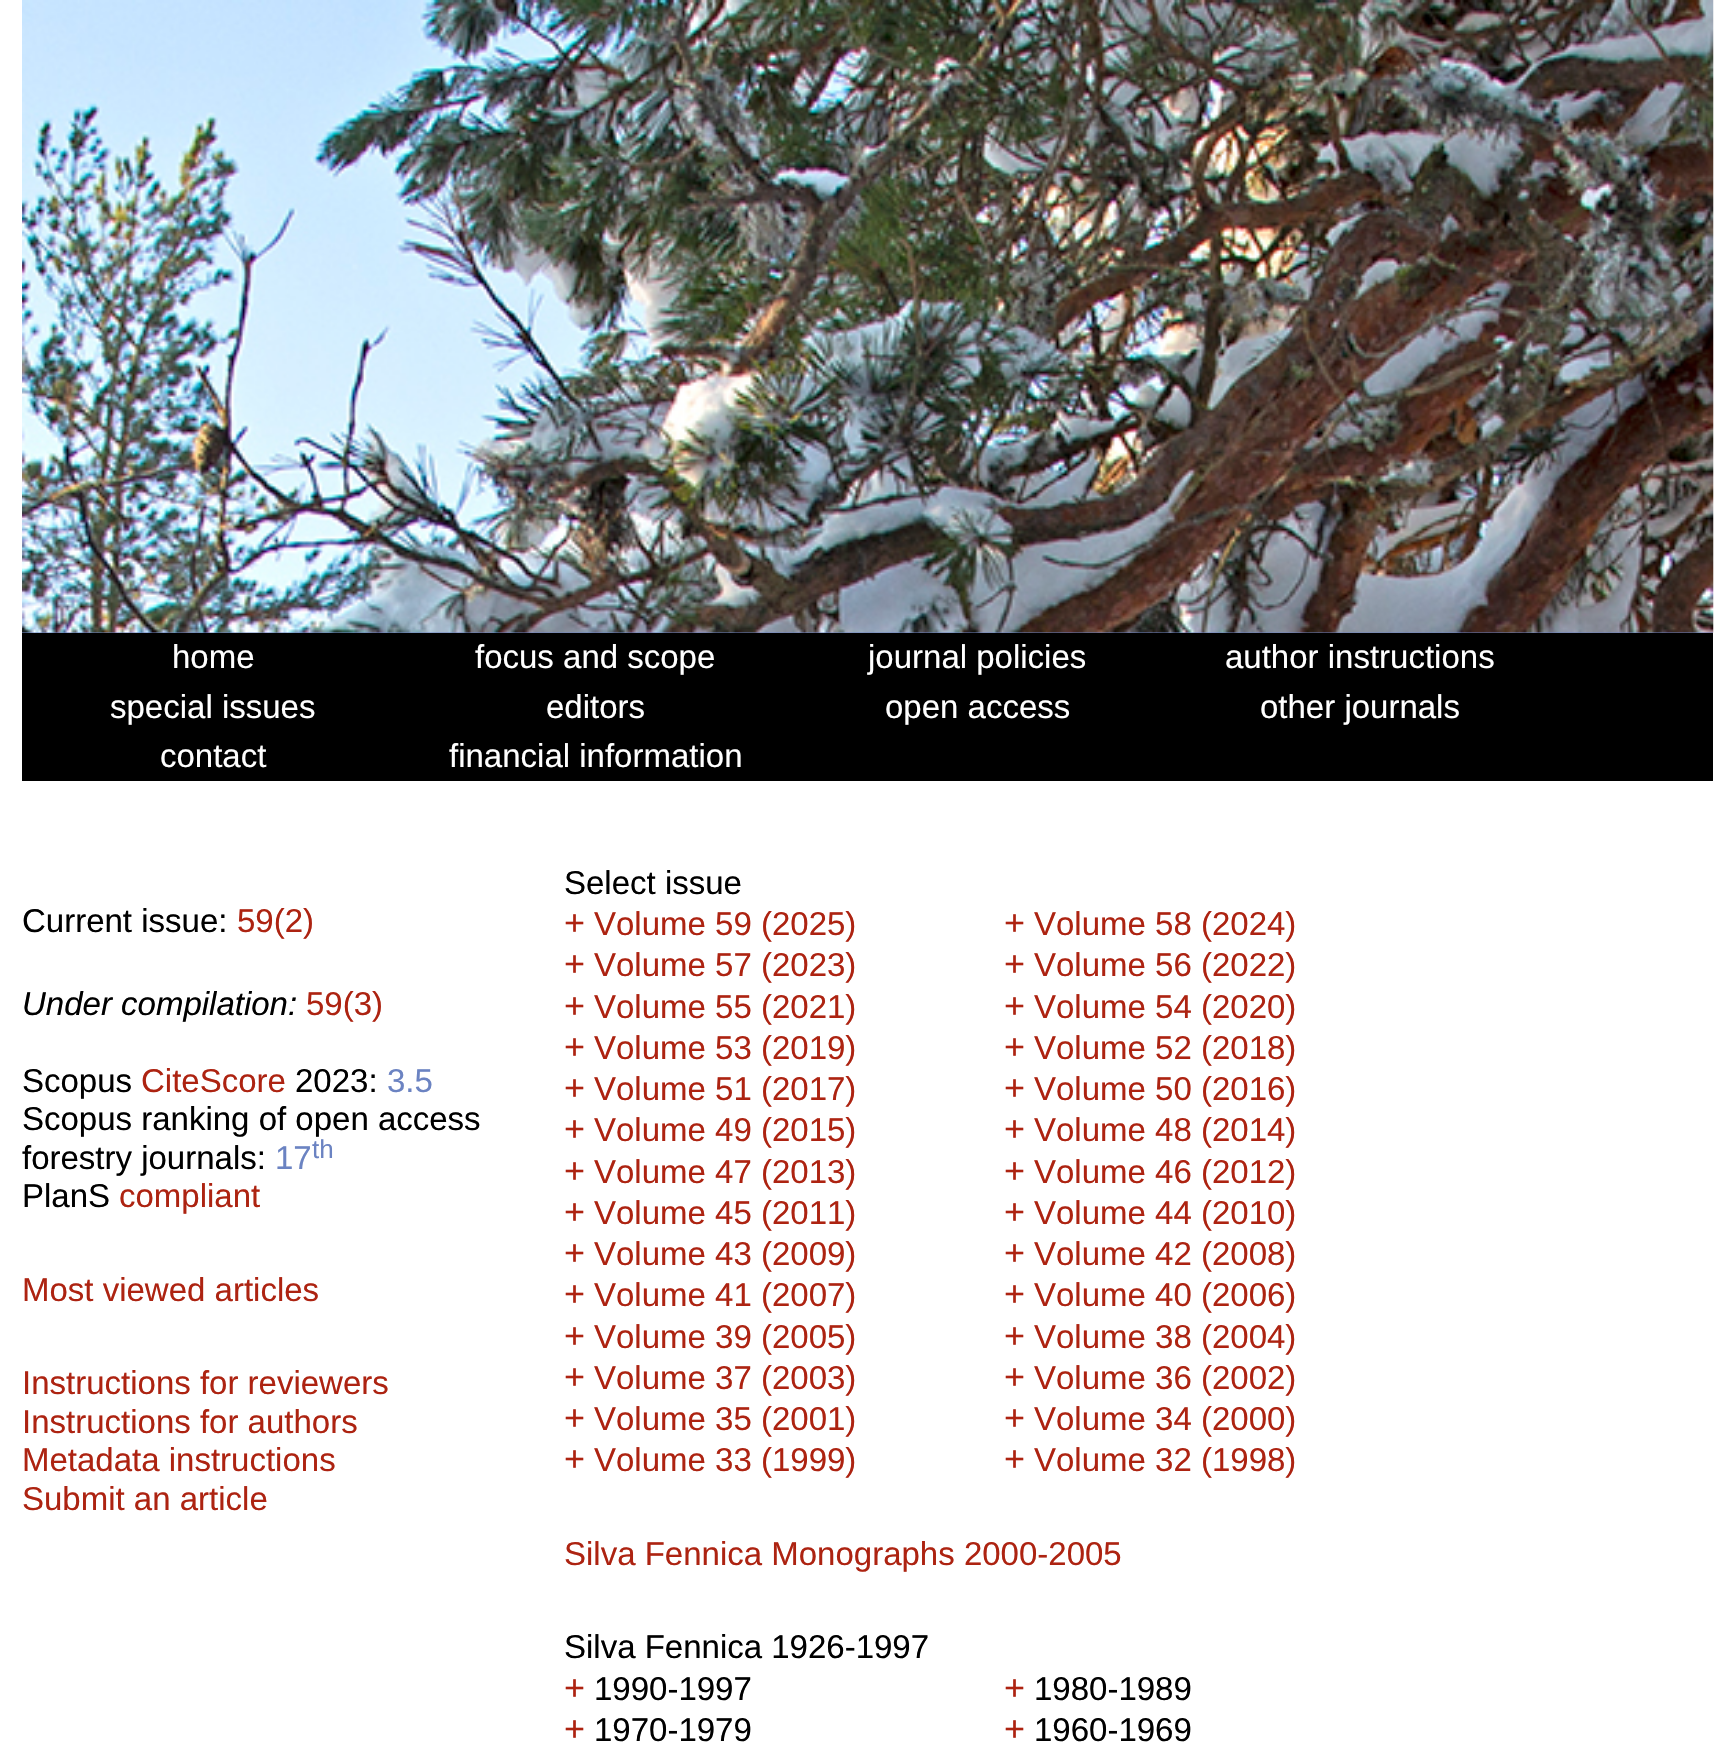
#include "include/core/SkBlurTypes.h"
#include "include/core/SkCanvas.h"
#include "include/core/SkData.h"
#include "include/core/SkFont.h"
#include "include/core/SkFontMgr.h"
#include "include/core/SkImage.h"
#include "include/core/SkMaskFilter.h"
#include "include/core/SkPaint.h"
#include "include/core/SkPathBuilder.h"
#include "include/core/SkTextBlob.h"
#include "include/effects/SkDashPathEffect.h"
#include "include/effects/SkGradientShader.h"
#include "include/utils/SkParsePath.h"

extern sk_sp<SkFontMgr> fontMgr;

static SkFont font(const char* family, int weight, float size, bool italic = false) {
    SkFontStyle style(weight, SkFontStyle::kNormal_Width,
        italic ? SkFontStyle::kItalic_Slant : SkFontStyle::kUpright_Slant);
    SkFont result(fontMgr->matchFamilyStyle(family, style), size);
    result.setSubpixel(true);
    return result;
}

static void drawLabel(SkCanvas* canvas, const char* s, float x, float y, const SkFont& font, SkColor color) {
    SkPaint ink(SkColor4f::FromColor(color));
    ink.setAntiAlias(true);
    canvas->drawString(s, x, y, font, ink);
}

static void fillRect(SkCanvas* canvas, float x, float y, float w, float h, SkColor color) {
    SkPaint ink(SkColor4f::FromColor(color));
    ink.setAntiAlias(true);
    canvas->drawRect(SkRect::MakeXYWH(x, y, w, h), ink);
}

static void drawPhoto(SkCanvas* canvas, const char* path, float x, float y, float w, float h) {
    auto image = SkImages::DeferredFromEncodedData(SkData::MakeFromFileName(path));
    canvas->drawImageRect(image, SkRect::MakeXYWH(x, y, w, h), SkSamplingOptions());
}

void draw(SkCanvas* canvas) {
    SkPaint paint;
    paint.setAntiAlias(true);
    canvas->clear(0xFFFFFFFF);
    fillRect(canvas, 22, 632, 1691, 1, 0xFF6B83C2);
    drawPhoto(canvas, "assets/img1.png", 22, 0, 1692, 633);
    fillRect(canvas, 22, 633, 1691, 148, 0xFF000000);
    SkFont font1 = font("Liberation Sans", 400, 33);
    drawLabel(canvas, "home", 172, 668, font1, 0xFFFFFFFF);
    drawLabel(canvas, "focus and scope", 475, 668, font1, 0xFFFFFFFF);
    drawLabel(canvas, "journal policies", 868, 668, font1, 0xFFFFFFFF);
    drawLabel(canvas, "author instructions", 1225, 668, font1, 0xFFFFFFFF);
    drawLabel(canvas, "special issues", 110, 718, font1, 0xFFFFFFFF);
    drawLabel(canvas, "editors", 546, 718, font1, 0xFFFFFFFF);
    drawLabel(canvas, "open access", 885, 718, font1, 0xFFFFFFFF);
    drawLabel(canvas, "other journals", 1260, 718, font1, 0xFFFFFFFF);
    drawLabel(canvas, "contact", 160, 767, font1, 0xFFFFFFFF);
    drawLabel(canvas, "financial information", 449, 767, font1, 0xFFFFFFFF);
    drawLabel(canvas, "Current issue:", 22, 932, font1, 0xFF000000);
    drawLabel(canvas, "59(2)", 237, 932, font1, 0xFFAD2311);
    SkFont font2 = font("Liberation Sans", 400, 33, true);
    drawLabel(canvas, "Under compilation:", 22, 1015, font2, 0xFF000000);
    drawLabel(canvas, "59(3)", 306, 1015, font1, 0xFFAD2311);
    drawLabel(canvas, "Scopus", 22, 1092, font1, 0xFF000000);
    drawLabel(canvas, "CiteScore", 141, 1092, font1, 0xFFAD2311);
    drawLabel(canvas, "2023:", 295, 1092, font1, 0xFF000000);
    drawLabel(canvas, "3.5", 387, 1092, font1, 0xFF6B83C2);
    drawLabel(canvas, "Scopus ranking of open access", 22, 1130, font1, 0xFF000000);
    drawLabel(canvas, "forestry journals:", 22, 1169, font1, 0xFF000000);
    drawLabel(canvas, "17", 275, 1169, font1, 0xFF6B83C2);
    SkFont font3 = font("Liberation Sans", 400, 26);
    drawLabel(canvas, "th", 312, 1158, font3, 0xFF6B83C2);
    drawLabel(canvas, "PlanS", 22, 1207, font1, 0xFF000000);
    drawLabel(canvas, "compliant", 119, 1207, font1, 0xFFAD2311);
    drawLabel(canvas, "Most viewed articles", 22, 1301, font1, 0xFFAD2311);
    drawLabel(canvas, "Instructions for reviewers", 22, 1394, font1, 0xFFAD2311);
    drawLabel(canvas, "Instructions for authors", 22, 1433, font1, 0xFFAD2311);
    drawLabel(canvas, "Metadata instructions", 22, 1471, font1, 0xFFAD2311);
    drawLabel(canvas, "Submit an article", 22, 1510, font1, 0xFFAD2311);
    drawLabel(canvas, "Select issue", 564, 894, font1, 0xFF000000);
    SkFont font4 = font("Liberation Sans", 400, 36);
    drawLabel(canvas, "+", 564, 935, font4, 0xFFAD2311);
    drawLabel(canvas, "Volume 59 (2025)", 594, 935, font1, 0xFFAD2311);
    drawLabel(canvas, "+", 1004, 935, font4, 0xFFAD2311);
    drawLabel(canvas, "Volume 58 (2024)", 1034, 935, font1, 0xFFAD2311);
    drawLabel(canvas, "+", 564, 976, font4, 0xFFAD2311);
    drawLabel(canvas, "Volume 57 (2023)", 594, 976, font1, 0xFFAD2311);
    drawLabel(canvas, "+", 1004, 976, font4, 0xFFAD2311);
    drawLabel(canvas, "Volume 56 (2022)", 1034, 976, font1, 0xFFAD2311);
    drawLabel(canvas, "+", 564, 1018, font4, 0xFFAD2311);
    drawLabel(canvas, "Volume 55 (2021)", 594, 1018, font1, 0xFFAD2311);
    drawLabel(canvas, "+", 1004, 1018, font4, 0xFFAD2311);
    drawLabel(canvas, "Volume 54 (2020)", 1034, 1018, font1, 0xFFAD2311);
    drawLabel(canvas, "+", 564, 1059, font4, 0xFFAD2311);
    drawLabel(canvas, "Volume 53 (2019)", 594, 1059, font1, 0xFFAD2311);
    drawLabel(canvas, "+", 1004, 1059, font4, 0xFFAD2311);
    drawLabel(canvas, "Volume 52 (2018)", 1034, 1059, font1, 0xFFAD2311);
    drawLabel(canvas, "+", 564, 1100, font4, 0xFFAD2311);
    drawLabel(canvas, "Volume 51 (2017)", 594, 1100, font1, 0xFFAD2311);
    drawLabel(canvas, "+", 1004, 1100, font4, 0xFFAD2311);
    drawLabel(canvas, "Volume 50 (2016)", 1034, 1100, font1, 0xFFAD2311);
    drawLabel(canvas, "+", 564, 1141, font4, 0xFFAD2311);
    drawLabel(canvas, "Volume 49 (2015)", 594, 1141, font1, 0xFFAD2311);
    drawLabel(canvas, "+", 1004, 1141, font4, 0xFFAD2311);
    drawLabel(canvas, "Volume 48 (2014)", 1034, 1141, font1, 0xFFAD2311);
    drawLabel(canvas, "+", 564, 1183, font4, 0xFFAD2311);
    drawLabel(canvas, "Volume 47 (2013)", 594, 1183, font1, 0xFFAD2311);
    drawLabel(canvas, "+", 1004, 1183, font4, 0xFFAD2311);
    drawLabel(canvas, "Volume 46 (2012)", 1034, 1183, font1, 0xFFAD2311);
    drawLabel(canvas, "+", 564, 1224, font4, 0xFFAD2311);
    drawLabel(canvas, "Volume 45 (2011)", 594, 1224, font1, 0xFFAD2311);
    drawLabel(canvas, "+", 1004, 1224, font4, 0xFFAD2311);
    drawLabel(canvas, "Volume 44 (2010)", 1034, 1224, font1, 0xFFAD2311);
    drawLabel(canvas, "+", 564, 1265, font4, 0xFFAD2311);
    drawLabel(canvas, "Volume 43 (2009)", 594, 1265, font1, 0xFFAD2311);
    drawLabel(canvas, "+", 1004, 1265, font4, 0xFFAD2311);
    drawLabel(canvas, "Volume 42 (2008)", 1034, 1265, font1, 0xFFAD2311);
    drawLabel(canvas, "+", 564, 1306, font4, 0xFFAD2311);
    drawLabel(canvas, "Volume 41 (2007)", 594, 1306, font1, 0xFFAD2311);
    drawLabel(canvas, "+", 1004, 1306, font4, 0xFFAD2311);
    drawLabel(canvas, "Volume 40 (2006)", 1034, 1306, font1, 0xFFAD2311);
    drawLabel(canvas, "+", 564, 1348, font4, 0xFFAD2311);
    drawLabel(canvas, "Volume 39 (2005)", 594, 1348, font1, 0xFFAD2311);
    drawLabel(canvas, "+", 1004, 1348, font4, 0xFFAD2311);
    drawLabel(canvas, "Volume 38 (2004)", 1034, 1348, font1, 0xFFAD2311);
    drawLabel(canvas, "+", 564, 1389, font4, 0xFFAD2311);
    drawLabel(canvas, "Volume 37 (2003)", 594, 1389, font1, 0xFFAD2311);
    drawLabel(canvas, "+", 1004, 1389, font4, 0xFFAD2311);
    drawLabel(canvas, "Volume 36 (2002)", 1034, 1389, font1, 0xFFAD2311);
    drawLabel(canvas, "+", 564, 1430, font4, 0xFFAD2311);
    drawLabel(canvas, "Volume 35 (2001)", 594, 1430, font1, 0xFFAD2311);
    drawLabel(canvas, "+", 1004, 1430, font4, 0xFFAD2311);
    drawLabel(canvas, "Volume 34 (2000)", 1034, 1430, font1, 0xFFAD2311);
    drawLabel(canvas, "+", 564, 1471, font4, 0xFFAD2311);
    drawLabel(canvas, "Volume 33 (1999)", 594, 1471, font1, 0xFFAD2311);
    drawLabel(canvas, "+", 1004, 1471, font4, 0xFFAD2311);
    drawLabel(canvas, "Volume 32 (1998)", 1034, 1471, font1, 0xFFAD2311);
    drawLabel(canvas, "Silva Fennica Monographs 2000-2005", 564, 1565, font1, 0xFFAD2311);
    drawLabel(canvas, "Silva Fennica 1926-1997", 564, 1658, font1, 0xFF000000);
    drawLabel(canvas, "+", 564, 1700, font4, 0xFFAD2311);
    drawLabel(canvas, "1990-1997", 594, 1700, font1, 0xFF000000);
    drawLabel(canvas, "+", 1004, 1700, font4, 0xFFAD2311);
    drawLabel(canvas, "1980-1989", 1034, 1700, font1, 0xFF000000);
    drawLabel(canvas, "+", 564, 1741, font4, 0xFFAD2311);
    drawLabel(canvas, "1970-1979", 594, 1741, font1, 0xFF000000);
    drawLabel(canvas, "+", 1004, 1741, font4, 0xFFAD2311);
    drawLabel(canvas, "1960-1969", 1034, 1741, font1, 0xFF000000);
}
